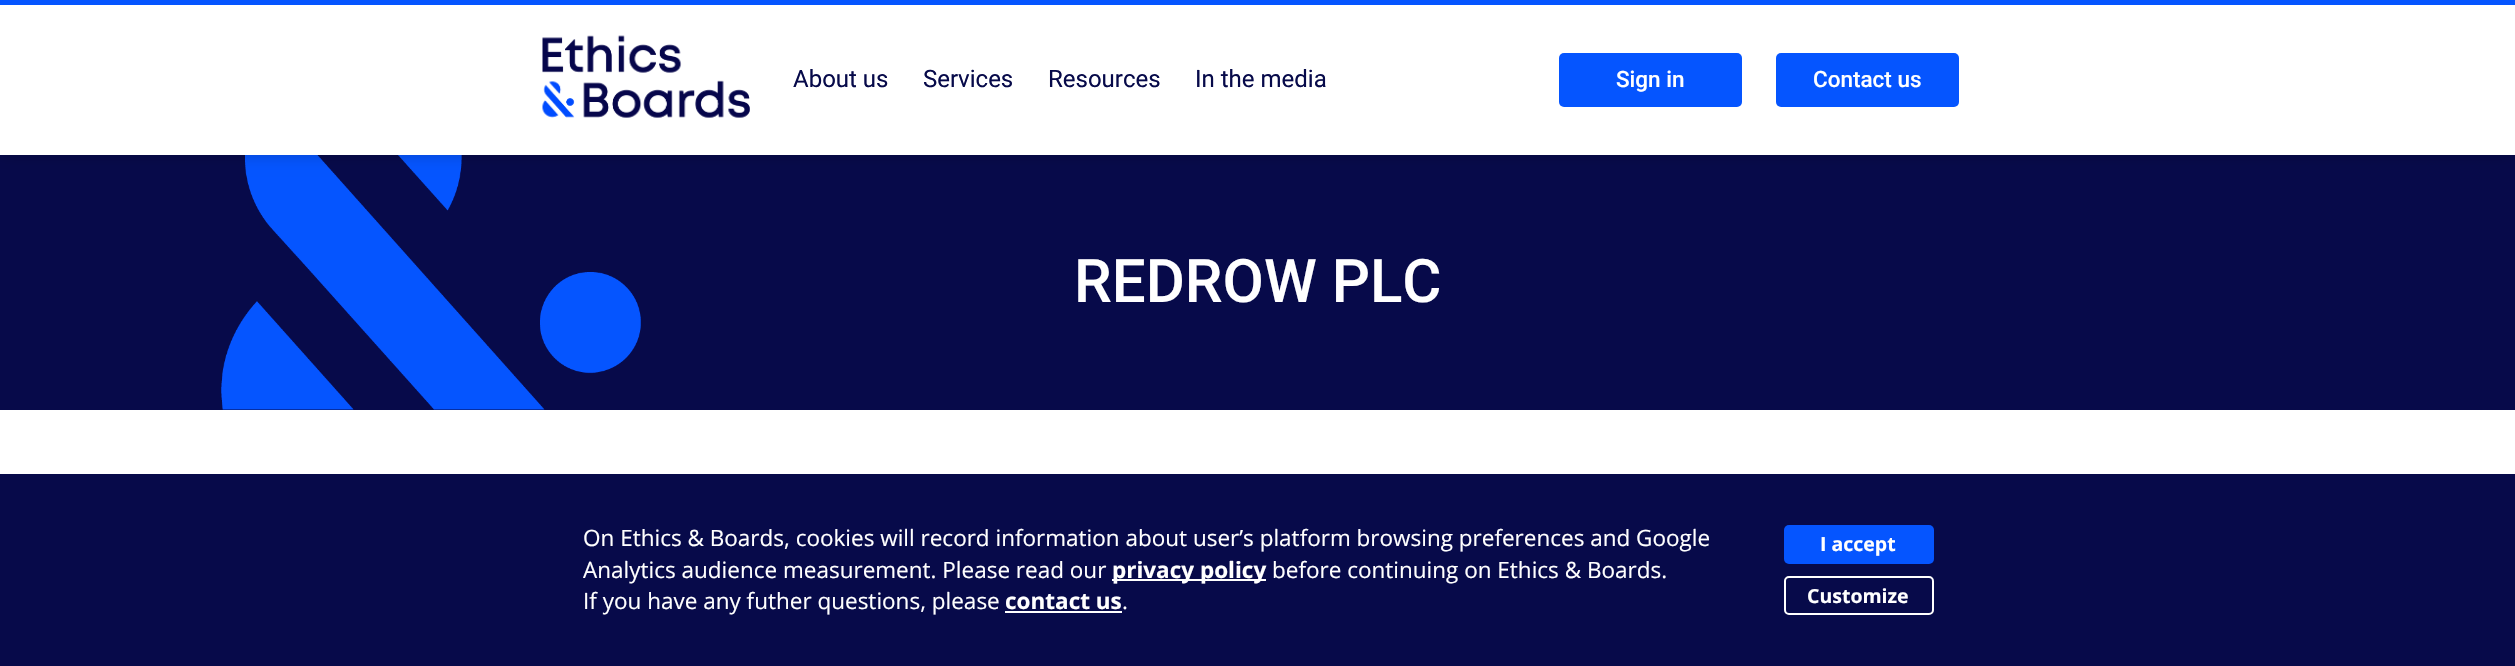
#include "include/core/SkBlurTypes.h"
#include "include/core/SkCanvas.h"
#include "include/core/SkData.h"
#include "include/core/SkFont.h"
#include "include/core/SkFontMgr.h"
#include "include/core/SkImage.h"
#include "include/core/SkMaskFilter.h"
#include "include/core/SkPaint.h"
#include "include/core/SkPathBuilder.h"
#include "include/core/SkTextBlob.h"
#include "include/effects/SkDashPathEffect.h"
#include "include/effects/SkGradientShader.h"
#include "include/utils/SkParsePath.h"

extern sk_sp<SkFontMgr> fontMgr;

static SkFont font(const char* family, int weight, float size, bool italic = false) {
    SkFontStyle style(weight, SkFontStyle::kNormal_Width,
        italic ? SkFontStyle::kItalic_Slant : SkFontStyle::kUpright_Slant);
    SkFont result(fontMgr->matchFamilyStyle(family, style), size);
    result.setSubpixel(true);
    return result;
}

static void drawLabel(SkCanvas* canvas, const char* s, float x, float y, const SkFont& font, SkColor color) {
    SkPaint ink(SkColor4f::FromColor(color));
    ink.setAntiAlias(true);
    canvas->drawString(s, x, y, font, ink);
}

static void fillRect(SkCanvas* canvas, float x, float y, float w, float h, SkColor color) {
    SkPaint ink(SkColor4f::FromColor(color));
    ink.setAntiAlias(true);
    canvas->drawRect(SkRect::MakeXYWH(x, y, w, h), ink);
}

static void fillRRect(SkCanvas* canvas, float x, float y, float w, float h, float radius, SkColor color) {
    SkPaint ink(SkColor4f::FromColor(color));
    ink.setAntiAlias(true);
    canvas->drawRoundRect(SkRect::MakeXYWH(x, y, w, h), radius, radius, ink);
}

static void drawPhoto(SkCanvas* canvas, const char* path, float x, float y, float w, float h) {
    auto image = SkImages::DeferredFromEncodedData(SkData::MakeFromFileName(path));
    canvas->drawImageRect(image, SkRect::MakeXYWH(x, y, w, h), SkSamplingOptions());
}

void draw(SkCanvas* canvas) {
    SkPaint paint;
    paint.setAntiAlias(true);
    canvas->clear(0xFFFFFFFF);
    fillRect(canvas, 0, 155, 2515, 255, 0xFF070A4A);
    drawPhoto(canvas, "assets/img2.png", 221, 155, 420, 255);
    paint.setColor(0x33000000);
    paint.setMaskFilter(SkMaskFilter::MakeBlur(kNormal_SkBlurStyle, 7.5f));
    canvas->drawRect(SkRect::MakeXYWH(0, 5, 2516, 150), paint);
    paint.setMaskFilter(nullptr);
    fillRect(canvas, 0, 0, 2515, 5, 0xFF0555FF);
    fillRect(canvas, 0, 5, 2515, 150, 0xFFFFFFFF);
    drawPhoto(canvas, "assets/img1.png", 542, 35, 208, 83);
    SkFont font1 = font("Roboto", 400, 24);
    drawLabel(canvas, "About us", 793, 87, font1, 0xFF070A4A);
    drawLabel(canvas, "Services", 923, 87, font1, 0xFF070A4A);
    drawLabel(canvas, "Resources", 1048, 87, font1, 0xFF070A4A);
    drawLabel(canvas, "In the media", 1195, 87, font1, 0xFF070A4A);
    fillRRect(canvas, 1559, 53, 183, 54, 5, 0xFF0555FF);
    SkFont font2 = font("Roboto", 500, 22.5f);
    drawLabel(canvas, "Sign in", 1616, 87, font2, 0xFFFFFFFF);
    fillRRect(canvas, 1776, 53, 183, 54, 5, 0xFF0555FF);
    drawLabel(canvas, "Contact us", 1813, 87, font2, 0xFFFFFFFF);
    SkFont font3 = font("Roboto", 500, 60);
    drawLabel(canvas, "REDROW PLC", 1074, 302, font3, 0xFFFFFFFF);
    fillRect(canvas, 0, 474, 2515, 192, 0xFF070A4A);
    SkFont font4 = font("Open Sans", 400, 22.5f);
    drawLabel(canvas, "On Ethics & Boards, cookies will record information about user’s platform browsing preferences and Google", 583, 546, font4, 0xFFFFFFFF);
    drawLabel(canvas, "Analytics audience measurement. Please read our", 583, 578, font4, 0xFFFFFFFF);
    fillRect(canvas, 1112, 579, 154, 2, 0xFFFFFFFF);
    SkFont font5 = font("Open Sans", 700, 22.5f);
    drawLabel(canvas, "privacy policy", 1112, 578, font5, 0xFFFFFFFF);
    drawLabel(canvas, "before continuing on Ethics & Boards.", 1272, 578, font4, 0xFFFFFFFF);
    drawLabel(canvas, "If you have any futher questions, please", 583, 609, font4, 0xFFFFFFFF);
    drawLabel(canvas, "contact us", 1005, 609, font5, 0xFFFFFFFF);
    fillRect(canvas, 1005, 611, 117, 2, 0xFFFFFFFF);
    drawLabel(canvas, ".", 1122, 609, font4, 0xFFFFFFFF);
    fillRRect(canvas, 1784, 525, 150, 39, 5, 0xFF0555FF);
    SkFont font6 = font("Open Sans", 700, 19.5f);
    drawLabel(canvas, "I accept", 1820, 551, font6, 0xFFFFFFFF);
    paint.setStroke(true);
    paint.setStrokeWidth(2);
    paint.setColor(0xFFFFFFFF);
    canvas->drawRoundRect(SkRect::MakeXYWH(1785, 577, 148, 37), 4, 4, paint);
    drawLabel(canvas, "Customize", 1807, 603, font6, 0xFFFFFFFF);
}
